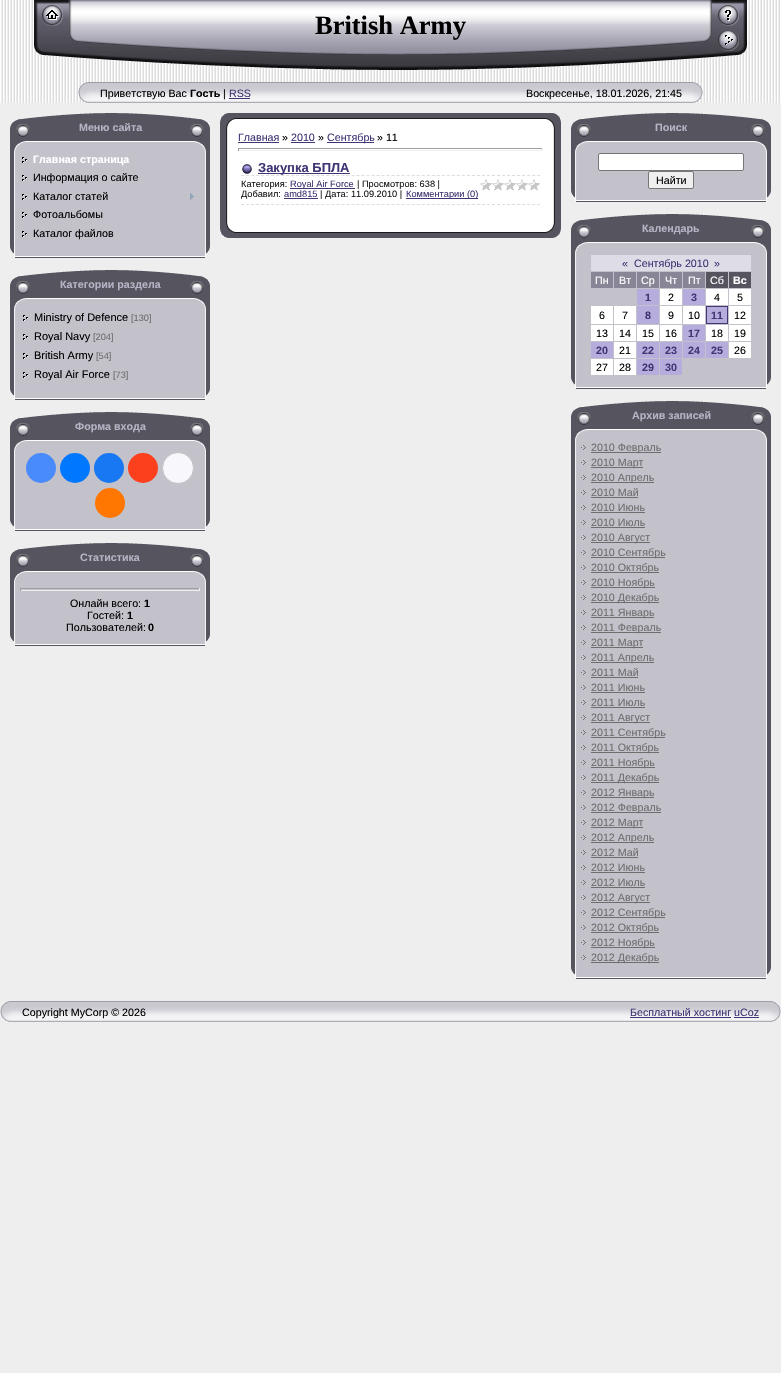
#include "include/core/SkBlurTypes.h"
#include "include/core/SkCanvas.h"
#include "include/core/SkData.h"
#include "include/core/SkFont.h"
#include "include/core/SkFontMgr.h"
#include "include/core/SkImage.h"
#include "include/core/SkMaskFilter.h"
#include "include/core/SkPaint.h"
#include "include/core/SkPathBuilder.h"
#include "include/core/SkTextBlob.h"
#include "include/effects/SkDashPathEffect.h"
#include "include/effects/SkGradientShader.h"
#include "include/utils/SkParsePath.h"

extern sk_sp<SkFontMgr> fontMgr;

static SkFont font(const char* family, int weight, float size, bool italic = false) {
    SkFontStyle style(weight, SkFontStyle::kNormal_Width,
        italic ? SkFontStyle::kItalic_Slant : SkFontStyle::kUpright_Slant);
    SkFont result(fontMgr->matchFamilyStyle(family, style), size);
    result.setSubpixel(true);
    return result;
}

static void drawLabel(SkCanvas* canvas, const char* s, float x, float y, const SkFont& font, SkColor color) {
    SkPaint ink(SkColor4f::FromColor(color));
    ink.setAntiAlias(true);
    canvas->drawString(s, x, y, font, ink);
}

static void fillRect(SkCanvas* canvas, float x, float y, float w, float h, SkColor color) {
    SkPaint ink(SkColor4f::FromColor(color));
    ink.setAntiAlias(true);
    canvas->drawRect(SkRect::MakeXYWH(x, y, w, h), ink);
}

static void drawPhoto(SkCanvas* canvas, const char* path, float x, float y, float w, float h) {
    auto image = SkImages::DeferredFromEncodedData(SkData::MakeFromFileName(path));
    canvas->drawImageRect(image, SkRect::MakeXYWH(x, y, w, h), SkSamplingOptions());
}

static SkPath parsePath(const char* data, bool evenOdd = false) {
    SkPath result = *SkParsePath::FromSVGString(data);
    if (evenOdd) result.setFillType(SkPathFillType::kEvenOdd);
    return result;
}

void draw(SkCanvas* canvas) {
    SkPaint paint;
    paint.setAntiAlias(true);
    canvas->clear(0xFFEEEEEE);
    drawPhoto(canvas, "assets/img1.png", 0, 0, 781, 103);
    drawPhoto(canvas, "assets/img2.png", 34, 0, 37, 57);
    drawPhoto(canvas, "assets/img3.png", 42, 5, 21, 21);
    drawPhoto(canvas, "assets/img4.png", 71, 0, 639, 70);
    SkFont font1 = font("Liberation Serif", 700, 26.5f);
    drawLabel(canvas, "British Army", 315, 34, font1, 0xFF000000);
    drawPhoto(canvas, "assets/img5.png", 710, 0, 37, 58);
    drawPhoto(canvas, "assets/img6.png", 718, 5, 21, 21);
    drawPhoto(canvas, "assets/img7.png", 718, 30, 21, 21);
    drawPhoto(canvas, "assets/img8.png", 78, 82, 20, 21);
    drawPhoto(canvas, "assets/img9.png", 98, 82, 585, 21);
    SkFont font2 = font("Liberation Sans", 400, 10.7f);
    drawLabel(canvas, "Приветствую Вас", 100, 97, font2, 0xFF000000);
    SkFont font3 = font("Liberation Sans", 700, 10.7f);
    drawLabel(canvas, "Гость", 190, 97, font3, 0xFF000000);
    drawLabel(canvas, "|", 223, 97, font2, 0xFF000000);
    drawLabel(canvas, "RSS", 229, 97, font2, 0xFF413574);
    fillRect(canvas, 229, 98, 21, 1, 0xFF413574);
    drawLabel(canvas, "Воскресенье, 18.01.2026, 21:45", 526, 97, font2, 0xFF000000);
    drawPhoto(canvas, "assets/img10.png", 683, 82, 20, 21);
    drawPhoto(canvas, "assets/img11.png", 10, 113, 200, 40);
    drawLabel(canvas, "Меню сайта", 79, 131, font3, 0xFFB7B3C5);
    drawPhoto(canvas, "assets/img12.png", 10, 153, 200, 92);
    drawPhoto(canvas, "assets/img13.png", 22, 157, 5, 6);
    drawLabel(canvas, "Главная страница", 33, 163, font3, 0xFFFFFFFF);
    drawPhoto(canvas, "assets/img13.png", 22, 175, 5, 6);
    drawLabel(canvas, "Информация о сайте", 33, 181, font2, 0xFF000000);
    drawPhoto(canvas, "assets/img13.png", 22, 194, 5, 6);
    drawLabel(canvas, "Каталог статей", 33, 200, font2, 0xFF000000);
    drawPhoto(canvas, "assets/img14.png", 190, 193, 4, 7);
    drawPhoto(canvas, "assets/img13.png", 22, 212, 5, 6);
    drawLabel(canvas, "Фотоальбомы", 33, 218, font2, 0xFF000000);
    drawPhoto(canvas, "assets/img13.png", 22, 231, 5, 6);
    drawLabel(canvas, "Каталог файлов", 33, 237, font2, 0xFF000000);
    drawPhoto(canvas, "assets/img15.png", 10, 245, 200, 13);
    drawPhoto(canvas, "assets/img11.png", 10, 270, 200, 40);
    drawLabel(canvas, "Категории раздела", 60, 288, font3, 0xFFB7B3C5);
    drawPhoto(canvas, "assets/img16.png", 10, 310, 200, 77);
    drawPhoto(canvas, "assets/img13.png", 23, 315, 5, 6);
    SkFont font4 = font("Liberation Sans", 400, 11);
    drawLabel(canvas, "Ministry of Defence", 34, 321, font4, 0xFF000000);
    SkFont font5 = font("Liberation Sans", 400, 9.25f);
    drawLabel(canvas, "[130]", 131, 321, font5, 0xFF6E6E6E);
    drawPhoto(canvas, "assets/img13.png", 23, 334, 5, 6);
    drawLabel(canvas, "Royal Navy", 34, 340, font4, 0xFF000000);
    drawLabel(canvas, "[204]", 93, 340, font5, 0xFF6E6E6E);
    drawPhoto(canvas, "assets/img13.png", 23, 353, 5, 6);
    drawLabel(canvas, "British Army", 34, 359, font4, 0xFF000000);
    drawLabel(canvas, "[54]", 96, 359, font5, 0xFF6E6E6E);
    drawPhoto(canvas, "assets/img13.png", 23, 372, 5, 6);
    drawLabel(canvas, "Royal Air Force", 34, 378, font4, 0xFF000000);
    drawLabel(canvas, "[73]", 113, 378, font5, 0xFF6E6E6E);
    drawPhoto(canvas, "assets/img15.png", 10, 387, 200, 13);
    drawPhoto(canvas, "assets/img11.png", 10, 412, 200, 40);
    drawLabel(canvas, "Форма входа", 75, 430, font3, 0xFFB7B3C5);
    drawPhoto(canvas, "assets/img17.png", 10, 452, 200, 66);
    paint.setColor(0xFF498BFA);
    canvas->drawCircle(41, 468, 15, paint);
    paint.setColor(0xFF0077FF);
    canvas->drawCircle(75, 468, 15, paint);
    paint.setColor(0xFF1877F2);
    canvas->drawCircle(109, 468, 15, paint);
    paint.setColor(0xFFFC3F1D);
    canvas->drawCircle(143, 468, 15, paint);
    paint.setColor(0xFFF8F8FC);
    canvas->drawCircle(178, 468, 15.5f, paint);
    paint.setStroke(true);
    paint.setStrokeWidth(1);
    paint.setColor(0xFFC4C4C4);
    canvas->drawCircle(178, 468, 15.5f, paint);
    paint.setStroke(false);
    paint.setColor(0xFFFF7700);
    canvas->drawCircle(110, 503, 15, paint);
    drawPhoto(canvas, "assets/img15.png", 10, 518, 200, 13);
    drawPhoto(canvas, "assets/img11.png", 10, 543, 200, 40);
    drawLabel(canvas, "Статистика", 80, 561, font3, 0xFFB7B3C5);
    drawPhoto(canvas, "assets/img18.png", 10, 583, 200, 50);
    fillRect(canvas, 20, 588, 180, 1, 0xFF9F9F9F);
    fillRect(canvas, 199, 588, 1, 3, 0xFFEEEEEE);
    fillRect(canvas, 20, 590, 180, 1, 0xFFEEEEEE);
    fillRect(canvas, 20, 588, 1, 3, 0xFF9F9F9F);
    drawLabel(canvas, "Онлайн всего:", 70, 607, font2, 0xFF000000);
    drawLabel(canvas, "1", 144, 607, font3, 0xFF000000);
    drawLabel(canvas, "Гостей:", 87, 619, font2, 0xFF000000);
    drawLabel(canvas, "1", 127, 619, font3, 0xFF000000);
    drawLabel(canvas, "Пользователей:", 66, 631, font2, 0xFF000000);
    drawLabel(canvas, "0", 148, 631, font3, 0xFF000000);
    drawPhoto(canvas, "assets/img15.png", 10, 633, 200, 13);
    drawPhoto(canvas, "assets/img19.png", 220, 113, 18, 18);
    drawPhoto(canvas, "assets/img20.png", 238, 113, 305, 18);
    drawPhoto(canvas, "assets/img21.png", 543, 113, 18, 18);
    drawPhoto(canvas, "assets/img22.png", 220, 131, 18, 89);
    fillRect(canvas, 238, 131, 305, 89, 0xFFFFFFFF);
    drawLabel(canvas, "Главная", 238, 141, font2, 0xFF413574);
    fillRect(canvas, 238, 142, 41, 1, 0xFF413574);
    drawLabel(canvas, "»", 282, 141, font2, 0xFF000000);
    drawLabel(canvas, "2010", 291, 141, font2, 0xFF413574);
    fillRect(canvas, 291, 142, 24, 1, 0xFF413574);
    drawLabel(canvas, "»", 318, 141, font2, 0xFF000000);
    fillRect(canvas, 327, 142, 47, 1, 0xFF413574);
    drawLabel(canvas, "Сентябрь", 327, 141, font2, 0xFF413574);
    drawLabel(canvas, "» 11", 377, 141, font2, 0xFF000000);
    fillRect(canvas, 238, 148, 305, 1, 0xFF9F9F9F);
    fillRect(canvas, 542, 148, 1, 3, 0xFFEEEEEE);
    fillRect(canvas, 238, 150, 305, 1, 0xFFEEEEEE);
    fillRect(canvas, 238, 148, 1, 3, 0xFF9F9F9F);
    drawPhoto(canvas, "assets/img23.png", 242, 164, 10, 10);
    fillRect(canvas, 258, 173, 92, 1, 0xFF413574);
    SkFont font6 = font("Liberation Sans", 700, 13);
    drawLabel(canvas, "Закупка БПЛА", 258, 172, font6, 0xFF413574);
    paint.setStroke(true);
    paint.setColor(0xFFDDDDDD);
    paint.setPathEffect(SkDashPathEffect::Make({{3, 2.02f}}, 0));
    canvas->drawPath(parsePath("M241 175.5H540"), paint);
    paint.setPathEffect(nullptr);
    paint.setPathEffect(SkDashPathEffect::Make({{3, 2.02f}}, 0));
    canvas->drawPath(parsePath("M241 204.5H540"), paint);
    paint.setPathEffect(nullptr);
    drawLabel(canvas, "Категория:", 241, 187, font5, 0xFF1A1A1A);
    fillRect(canvas, 290, 188, 65, 1, 0xFF413574);
    drawLabel(canvas, "Royal Air Force", 290, 187, font5, 0xFF413574);
    drawLabel(canvas, "| Просмотров: 638 |", 357, 187, font5, 0xFF1A1A1A);
    drawPhoto(canvas, "assets/img24.png", 480, 179, 60, 12);
    drawLabel(canvas, "Добавил:", 241, 197, font5, 0xFF1A1A1A);
    drawLabel(canvas, "amd815", 284, 197, font5, 0xFF413574);
    fillRect(canvas, 284, 198, 34, 1, 0xFF413574);
    drawLabel(canvas, "| Дата: 11.09.2010 |", 320, 197, font5, 0xFF1A1A1A);
    fillRect(canvas, 406, 198, 72, 1, 0xFF413574);
    drawLabel(canvas, "Комментарии (0)", 406, 197, font5, 0xFF413574);
    drawPhoto(canvas, "assets/img25.png", 543, 131, 18, 89);
    drawPhoto(canvas, "assets/img26.png", 220, 220, 18, 18);
    drawPhoto(canvas, "assets/img27.png", 238, 220, 305, 18);
    drawPhoto(canvas, "assets/img28.png", 543, 220, 18, 18);
    drawPhoto(canvas, "assets/img11.png", 571, 113, 200, 40);
    drawLabel(canvas, "Поиск", 655, 131, font3, 0xFFB7B3C5);
    drawPhoto(canvas, "assets/img29.png", 571, 153, 200, 36);
    paint.setStroke(false);
    paint.setColor(0xFFFFFFFF);
    canvas->drawRoundRect(SkRect::MakeXYWH(598.5f, 153.5f, 145, 17), 1.5f, 1.5f, paint);
    paint.setStroke(true);
    paint.setColor(0xFF767676);
    canvas->drawRoundRect(SkRect::MakeXYWH(598.5f, 153.5f, 145, 17), 1.5f, 1.5f, paint);
    paint.setStroke(false);
    paint.setColor(0xFFEFEFEF);
    canvas->drawRoundRect(SkRect::MakeXYWH(648.5f, 171.5f, 45, 17), 1.5f, 1.5f, paint);
    paint.setStroke(true);
    paint.setColor(0xFF767676);
    canvas->drawRoundRect(SkRect::MakeXYWH(648.5f, 171.5f, 45, 17), 1.5f, 1.5f, paint);
    drawLabel(canvas, "Найти", 656, 184, font2, 0xFF000000);
    drawPhoto(canvas, "assets/img15.png", 571, 189, 200, 13);
    drawPhoto(canvas, "assets/img11.png", 571, 214, 200, 40);
    drawLabel(canvas, "Календарь", 642, 232, font3, 0xFFB7B3C5);
    drawPhoto(canvas, "assets/img30.png", 571, 254, 200, 122);
    fillRect(canvas, 591, 255, 160, 16, 0xFFDEDCE6);
    drawLabel(canvas, "«", 622, 267, font2, 0xFF413574);
    drawLabel(canvas, "Сентябрь 2010", 634, 267, font2, 0xFF413574);
    drawLabel(canvas, "»", 714, 267, font2, 0xFF413574);
    fillRect(canvas, 591, 272, 22, 16, 0xFF888596);
    drawLabel(canvas, "Пн", 595, 284, font2, 0xFFFFFFFF);
    fillRect(canvas, 614, 272, 22, 16, 0xFF888596);
    drawLabel(canvas, "Вт", 619, 284, font2, 0xFFFFFFFF);
    fillRect(canvas, 637, 272, 22, 16, 0xFF888596);
    drawLabel(canvas, "Ср", 641, 284, font2, 0xFFFFFFFF);
    fillRect(canvas, 660, 272, 22, 16, 0xFF888596);
    drawLabel(canvas, "Чт", 665, 284, font2, 0xFFFFFFFF);
    fillRect(canvas, 683, 272, 22, 16, 0xFF888596);
    drawLabel(canvas, "Пт", 688, 284, font2, 0xFFFFFFFF);
    fillRect(canvas, 706, 272, 22, 16, 0xFF56545F);
    drawLabel(canvas, "Сб", 710, 284, font2, 0xFFFFFFFF);
    fillRect(canvas, 729, 272, 22, 16, 0xFF56545F);
    drawLabel(canvas, "Вс", 733, 284, font3, 0xFFFFFFFF);
    fillRect(canvas, 637, 289, 22, 16, 0xFFB6ADDC);
    drawLabel(canvas, "1", 645, 301, font3, 0xFF413574);
    fillRect(canvas, 660, 289, 22, 16, 0xFFFFFFFF);
    drawLabel(canvas, "2", 668, 301, font2, 0xFF000000);
    fillRect(canvas, 683, 289, 22, 16, 0xFFB6ADDC);
    drawLabel(canvas, "3", 691, 301, font3, 0xFF413574);
    fillRect(canvas, 706, 289, 22, 16, 0xFFFFFFFF);
    drawLabel(canvas, "4", 714, 301, font2, 0xFF000000);
    fillRect(canvas, 729, 289, 22, 16, 0xFFFFFFFF);
    drawLabel(canvas, "5", 737, 301, font2, 0xFF000000);
    fillRect(canvas, 591, 306, 22, 18, 0xFFFFFFFF);
    drawLabel(canvas, "6", 599, 319, font2, 0xFF000000);
    fillRect(canvas, 614, 306, 22, 18, 0xFFFFFFFF);
    drawLabel(canvas, "7", 622, 319, font2, 0xFF000000);
    fillRect(canvas, 637, 306, 22, 18, 0xFFB6ADDC);
    drawLabel(canvas, "8", 645, 319, font3, 0xFF413574);
    fillRect(canvas, 660, 306, 22, 18, 0xFFFFFFFF);
    drawLabel(canvas, "9", 668, 319, font2, 0xFF000000);
    fillRect(canvas, 683, 306, 22, 18, 0xFFFFFFFF);
    drawLabel(canvas, "10", 688, 319, font2, 0xFF000000);
    paint.setStroke(false);
    paint.setColor(0xFFB6ADDC);
    canvas->drawRect(SkRect::MakeXYWH(706.5f, 306.5f, 21, 17), paint);
    paint.setStroke(true);
    paint.setColor(0xFF413574);
    canvas->drawRect(SkRect::MakeXYWH(706.5f, 306.5f, 21, 17), paint);
    drawLabel(canvas, "11", 711, 319, font3, 0xFF413574);
    fillRect(canvas, 729, 306, 22, 18, 0xFFFFFFFF);
    drawLabel(canvas, "12", 734, 319, font2, 0xFF000000);
    fillRect(canvas, 591, 325, 22, 16, 0xFFFFFFFF);
    drawLabel(canvas, "13", 596, 337, font2, 0xFF000000);
    fillRect(canvas, 614, 325, 22, 16, 0xFFFFFFFF);
    drawLabel(canvas, "14", 619, 337, font2, 0xFF000000);
    fillRect(canvas, 637, 325, 22, 16, 0xFFFFFFFF);
    drawLabel(canvas, "15", 642, 337, font2, 0xFF000000);
    fillRect(canvas, 660, 325, 22, 16, 0xFFFFFFFF);
    drawLabel(canvas, "16", 665, 337, font2, 0xFF000000);
    fillRect(canvas, 683, 325, 22, 16, 0xFFB6ADDC);
    drawLabel(canvas, "17", 688, 337, font3, 0xFF413574);
    fillRect(canvas, 706, 325, 22, 16, 0xFFFFFFFF);
    drawLabel(canvas, "18", 711, 337, font2, 0xFF000000);
    fillRect(canvas, 729, 325, 22, 16, 0xFFFFFFFF);
    drawLabel(canvas, "19", 734, 337, font2, 0xFF000000);
    fillRect(canvas, 591, 342, 22, 16, 0xFFB6ADDC);
    drawLabel(canvas, "20", 596, 354, font3, 0xFF413574);
    fillRect(canvas, 614, 342, 22, 16, 0xFFFFFFFF);
    drawLabel(canvas, "21", 619, 354, font2, 0xFF000000);
    fillRect(canvas, 637, 342, 22, 16, 0xFFB6ADDC);
    drawLabel(canvas, "22", 642, 354, font3, 0xFF413574);
    fillRect(canvas, 660, 342, 22, 16, 0xFFB6ADDC);
    drawLabel(canvas, "23", 665, 354, font3, 0xFF413574);
    fillRect(canvas, 683, 342, 22, 16, 0xFFB6ADDC);
    drawLabel(canvas, "24", 688, 354, font3, 0xFF413574);
    fillRect(canvas, 706, 342, 22, 16, 0xFFB6ADDC);
    drawLabel(canvas, "25", 711, 354, font3, 0xFF413574);
    fillRect(canvas, 729, 342, 22, 16, 0xFFFFFFFF);
    drawLabel(canvas, "26", 734, 354, font2, 0xFF000000);
    fillRect(canvas, 591, 359, 22, 16, 0xFFFFFFFF);
    drawLabel(canvas, "27", 596, 371, font2, 0xFF000000);
    fillRect(canvas, 614, 359, 22, 16, 0xFFFFFFFF);
    drawLabel(canvas, "28", 619, 371, font2, 0xFF000000);
    fillRect(canvas, 637, 359, 22, 16, 0xFFB6ADDC);
    drawLabel(canvas, "29", 642, 371, font3, 0xFF413574);
    fillRect(canvas, 660, 359, 22, 16, 0xFFB6ADDC);
    drawLabel(canvas, "30", 665, 371, font3, 0xFF413574);
    drawPhoto(canvas, "assets/img15.png", 571, 376, 200, 13);
    drawPhoto(canvas, "assets/img11.png", 571, 401, 200, 40);
    drawLabel(canvas, "Архив записей", 632, 419, font3, 0xFFB7B3C5);
    drawPhoto(canvas, "assets/img31.png", 571, 441, 200, 525);
    drawPhoto(canvas, "assets/img32.png", 581, 445, 5, 5);
    fillRect(canvas, 591, 452, 70, 1, 0xFF6E6E6E);
    drawLabel(canvas, "2010 Февраль", 591, 451, font2, 0xFF6E6E6E);
    drawPhoto(canvas, "assets/img32.png", 581, 460, 5, 5);
    fillRect(canvas, 591, 467, 52, 1, 0xFF6E6E6E);
    drawLabel(canvas, "2010 Март", 591, 466, font2, 0xFF6E6E6E);
    drawPhoto(canvas, "assets/img32.png", 581, 475, 5, 5);
    fillRect(canvas, 591, 482, 63, 1, 0xFF6E6E6E);
    drawLabel(canvas, "2010 Апрель", 591, 481, font2, 0xFF6E6E6E);
    drawPhoto(canvas, "assets/img32.png", 581, 490, 5, 5);
    drawLabel(canvas, "2010 Май", 591, 496, font2, 0xFF6E6E6E);
    fillRect(canvas, 591, 497, 47, 1, 0xFF6E6E6E);
    drawPhoto(canvas, "assets/img32.png", 581, 505, 5, 5);
    drawLabel(canvas, "2010 Июнь", 591, 511, font2, 0xFF6E6E6E);
    fillRect(canvas, 591, 512, 54, 1, 0xFF6E6E6E);
    drawPhoto(canvas, "assets/img32.png", 581, 520, 5, 5);
    drawLabel(canvas, "2010 Июль", 591, 526, font2, 0xFF6E6E6E);
    fillRect(canvas, 591, 527, 54, 1, 0xFF6E6E6E);
    drawPhoto(canvas, "assets/img32.png", 581, 535, 5, 5);
    fillRect(canvas, 591, 542, 59, 1, 0xFF6E6E6E);
    drawLabel(canvas, "2010 Август", 591, 541, font2, 0xFF6E6E6E);
    drawPhoto(canvas, "assets/img32.png", 581, 550, 5, 5);
    fillRect(canvas, 591, 557, 74, 1, 0xFF6E6E6E);
    drawLabel(canvas, "2010 Сентябрь", 591, 556, font2, 0xFF6E6E6E);
    drawPhoto(canvas, "assets/img32.png", 581, 565, 5, 5);
    fillRect(canvas, 591, 572, 68, 1, 0xFF6E6E6E);
    drawLabel(canvas, "2010 Октябрь", 591, 571, font2, 0xFF6E6E6E);
    drawPhoto(canvas, "assets/img32.png", 581, 580, 5, 5);
    fillRect(canvas, 591, 587, 64, 1, 0xFF6E6E6E);
    drawLabel(canvas, "2010 Ноябрь", 591, 586, font2, 0xFF6E6E6E);
    drawPhoto(canvas, "assets/img32.png", 581, 595, 5, 5);
    fillRect(canvas, 591, 602, 68, 1, 0xFF6E6E6E);
    drawLabel(canvas, "2010 Декабрь", 591, 601, font2, 0xFF6E6E6E);
    drawPhoto(canvas, "assets/img32.png", 581, 610, 5, 5);
    fillRect(canvas, 591, 617, 63, 1, 0xFF6E6E6E);
    drawLabel(canvas, "2011 Январь", 591, 616, font2, 0xFF6E6E6E);
    drawPhoto(canvas, "assets/img32.png", 581, 625, 5, 5);
    fillRect(canvas, 591, 632, 70, 1, 0xFF6E6E6E);
    drawLabel(canvas, "2011 Февраль", 591, 631, font2, 0xFF6E6E6E);
    drawPhoto(canvas, "assets/img32.png", 581, 640, 5, 5);
    fillRect(canvas, 591, 647, 52, 1, 0xFF6E6E6E);
    drawLabel(canvas, "2011 Март", 591, 646, font2, 0xFF6E6E6E);
    drawPhoto(canvas, "assets/img32.png", 581, 655, 5, 5);
    fillRect(canvas, 591, 662, 63, 1, 0xFF6E6E6E);
    drawLabel(canvas, "2011 Апрель", 591, 661, font2, 0xFF6E6E6E);
    drawPhoto(canvas, "assets/img32.png", 581, 670, 5, 5);
    drawLabel(canvas, "2011 Май", 591, 676, font2, 0xFF6E6E6E);
    fillRect(canvas, 591, 677, 47, 1, 0xFF6E6E6E);
    drawPhoto(canvas, "assets/img32.png", 581, 685, 5, 5);
    drawLabel(canvas, "2011 Июнь", 591, 691, font2, 0xFF6E6E6E);
    fillRect(canvas, 591, 692, 54, 1, 0xFF6E6E6E);
    drawPhoto(canvas, "assets/img32.png", 581, 700, 5, 5);
    drawLabel(canvas, "2011 Июль", 591, 706, font2, 0xFF6E6E6E);
    fillRect(canvas, 591, 707, 54, 1, 0xFF6E6E6E);
    drawPhoto(canvas, "assets/img32.png", 581, 715, 5, 5);
    fillRect(canvas, 591, 722, 59, 1, 0xFF6E6E6E);
    drawLabel(canvas, "2011 Август", 591, 721, font2, 0xFF6E6E6E);
    drawPhoto(canvas, "assets/img32.png", 581, 730, 5, 5);
    fillRect(canvas, 591, 737, 74, 1, 0xFF6E6E6E);
    drawLabel(canvas, "2011 Сентябрь", 591, 736, font2, 0xFF6E6E6E);
    drawPhoto(canvas, "assets/img32.png", 581, 745, 5, 5);
    fillRect(canvas, 591, 752, 68, 1, 0xFF6E6E6E);
    drawLabel(canvas, "2011 Октябрь", 591, 751, font2, 0xFF6E6E6E);
    drawPhoto(canvas, "assets/img32.png", 581, 760, 5, 5);
    fillRect(canvas, 591, 767, 64, 1, 0xFF6E6E6E);
    drawLabel(canvas, "2011 Ноябрь", 591, 766, font2, 0xFF6E6E6E);
    drawPhoto(canvas, "assets/img32.png", 581, 775, 5, 5);
    fillRect(canvas, 591, 782, 68, 1, 0xFF6E6E6E);
    drawLabel(canvas, "2011 Декабрь", 591, 781, font2, 0xFF6E6E6E);
    drawPhoto(canvas, "assets/img32.png", 581, 790, 5, 5);
    fillRect(canvas, 591, 797, 63, 1, 0xFF6E6E6E);
    drawLabel(canvas, "2012 Январь", 591, 796, font2, 0xFF6E6E6E);
    drawPhoto(canvas, "assets/img32.png", 581, 805, 5, 5);
    fillRect(canvas, 591, 812, 70, 1, 0xFF6E6E6E);
    drawLabel(canvas, "2012 Февраль", 591, 811, font2, 0xFF6E6E6E);
    drawPhoto(canvas, "assets/img32.png", 581, 820, 5, 5);
    fillRect(canvas, 591, 827, 52, 1, 0xFF6E6E6E);
    drawLabel(canvas, "2012 Март", 591, 826, font2, 0xFF6E6E6E);
    drawPhoto(canvas, "assets/img32.png", 581, 835, 5, 5);
    fillRect(canvas, 591, 842, 63, 1, 0xFF6E6E6E);
    drawLabel(canvas, "2012 Апрель", 591, 841, font2, 0xFF6E6E6E);
    drawPhoto(canvas, "assets/img32.png", 581, 850, 5, 5);
    drawLabel(canvas, "2012 Май", 591, 856, font2, 0xFF6E6E6E);
    fillRect(canvas, 591, 857, 47, 1, 0xFF6E6E6E);
    drawPhoto(canvas, "assets/img32.png", 581, 865, 5, 5);
    drawLabel(canvas, "2012 Июнь", 591, 871, font2, 0xFF6E6E6E);
    fillRect(canvas, 591, 872, 54, 1, 0xFF6E6E6E);
    drawPhoto(canvas, "assets/img32.png", 581, 880, 5, 5);
    drawLabel(canvas, "2012 Июль", 591, 886, font2, 0xFF6E6E6E);
    fillRect(canvas, 591, 887, 54, 1, 0xFF6E6E6E);
    drawPhoto(canvas, "assets/img32.png", 581, 895, 5, 5);
    fillRect(canvas, 591, 902, 59, 1, 0xFF6E6E6E);
    drawLabel(canvas, "2012 Август", 591, 901, font2, 0xFF6E6E6E);
    drawPhoto(canvas, "assets/img32.png", 581, 910, 5, 5);
    fillRect(canvas, 591, 917, 74, 1, 0xFF6E6E6E);
    drawLabel(canvas, "2012 Сентябрь", 591, 916, font2, 0xFF6E6E6E);
    drawPhoto(canvas, "assets/img32.png", 581, 925, 5, 5);
    fillRect(canvas, 591, 932, 68, 1, 0xFF6E6E6E);
    drawLabel(canvas, "2012 Октябрь", 591, 931, font2, 0xFF6E6E6E);
    drawPhoto(canvas, "assets/img32.png", 581, 940, 5, 5);
    fillRect(canvas, 591, 947, 64, 1, 0xFF6E6E6E);
    drawLabel(canvas, "2012 Ноябрь", 591, 946, font2, 0xFF6E6E6E);
    drawPhoto(canvas, "assets/img32.png", 581, 955, 5, 5);
    fillRect(canvas, 591, 962, 68, 1, 0xFF6E6E6E);
    drawLabel(canvas, "2012 Декабрь", 591, 961, font2, 0xFF6E6E6E);
    drawPhoto(canvas, "assets/img15.png", 571, 966, 200, 13);
    drawPhoto(canvas, "assets/img33.png", 0, 1001, 20, 21);
    drawPhoto(canvas, "assets/img34.png", 20, 1001, 741, 21);
    drawLabel(canvas, "Copyright MyCorp © 2026", 22, 1016, font2, 0xFF000000);
    drawLabel(canvas, "Бесплатный хостинг uCoz", 630, 1016, font2, 0xFF413574);
    fillRect(canvas, 630, 1017, 101, 1, 0xFF413574);
    fillRect(canvas, 734, 1017, 25, 1, 0xFF413574);
    drawPhoto(canvas, "assets/img35.png", 761, 1001, 20, 21);
}
